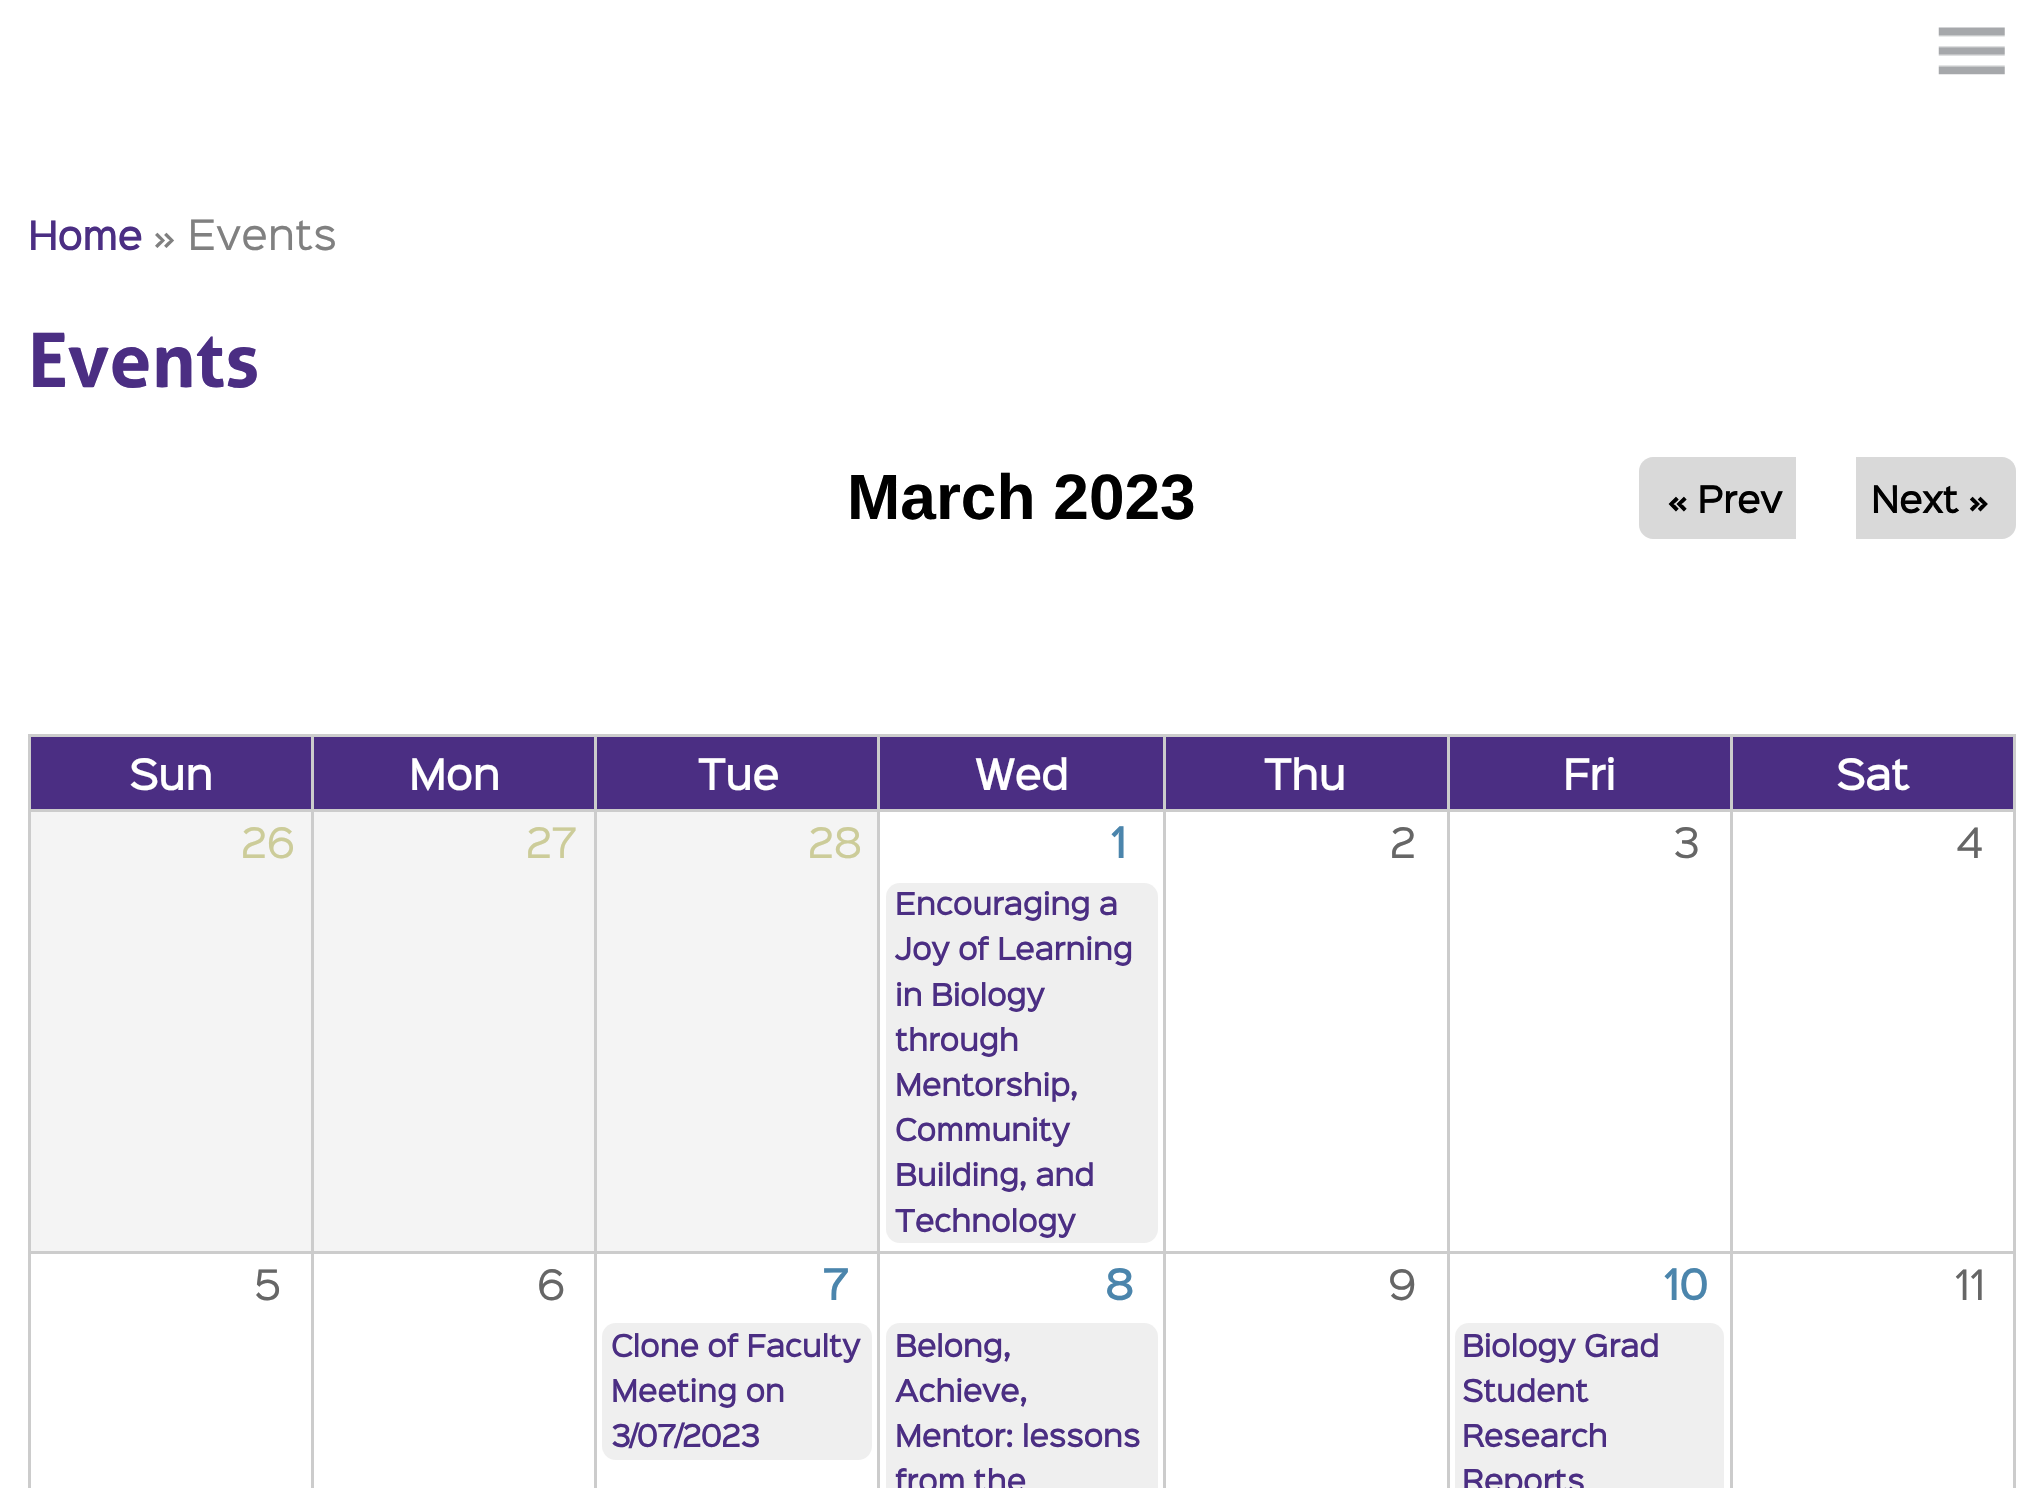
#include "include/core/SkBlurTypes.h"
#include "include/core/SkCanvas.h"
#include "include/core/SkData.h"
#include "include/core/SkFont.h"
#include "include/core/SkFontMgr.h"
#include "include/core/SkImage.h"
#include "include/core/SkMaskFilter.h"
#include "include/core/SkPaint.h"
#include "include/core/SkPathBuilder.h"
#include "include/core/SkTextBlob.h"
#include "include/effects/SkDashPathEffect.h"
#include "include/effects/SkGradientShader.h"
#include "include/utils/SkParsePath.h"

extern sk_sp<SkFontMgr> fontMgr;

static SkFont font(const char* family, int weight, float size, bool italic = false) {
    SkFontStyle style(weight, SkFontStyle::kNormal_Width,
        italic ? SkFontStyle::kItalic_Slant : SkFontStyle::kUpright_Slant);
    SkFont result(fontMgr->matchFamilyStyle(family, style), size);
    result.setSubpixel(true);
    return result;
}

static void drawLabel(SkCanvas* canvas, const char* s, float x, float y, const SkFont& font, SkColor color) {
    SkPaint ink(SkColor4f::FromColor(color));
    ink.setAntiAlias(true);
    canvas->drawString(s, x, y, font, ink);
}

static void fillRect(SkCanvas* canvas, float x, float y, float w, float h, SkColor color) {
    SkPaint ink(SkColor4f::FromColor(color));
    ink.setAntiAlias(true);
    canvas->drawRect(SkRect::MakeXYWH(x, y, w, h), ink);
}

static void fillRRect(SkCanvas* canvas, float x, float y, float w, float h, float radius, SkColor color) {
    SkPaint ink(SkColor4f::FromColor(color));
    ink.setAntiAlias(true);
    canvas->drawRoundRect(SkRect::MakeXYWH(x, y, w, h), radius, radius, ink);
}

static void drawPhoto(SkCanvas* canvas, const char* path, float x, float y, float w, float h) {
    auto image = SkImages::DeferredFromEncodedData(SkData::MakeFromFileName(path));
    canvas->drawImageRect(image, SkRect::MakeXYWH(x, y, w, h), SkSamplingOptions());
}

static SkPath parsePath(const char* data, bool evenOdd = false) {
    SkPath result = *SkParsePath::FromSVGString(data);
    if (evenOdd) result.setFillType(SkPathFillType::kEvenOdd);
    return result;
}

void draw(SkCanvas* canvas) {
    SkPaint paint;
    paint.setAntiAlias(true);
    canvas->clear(0xFFFFFFFF);
    drawPhoto(canvas, "assets/img1.png", 1938, 27, 67, 48);
    SkFont font1 = font("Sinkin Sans", 700, 35);
    drawLabel(canvas, "Home", 28, 250, font1, 0xFF4B2E83);
    SkFont font2 = font("Sinkin Sans", 400, 37.75f);
    drawLabel(canvas, "» Events", 153, 250, font2, 0xFF808080);
    SkFont font3 = font("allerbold", 700, 75.5f);
    drawLabel(canvas, "Events", 28, 387, font3, 0xFF4B2E83);
    SkFont font4 = font("Liberation Sans", 700, 64);
    drawLabel(canvas, "March 2023", 847, 519, font4, 0xFF000000);
    paint.setColor(0xFFD9D9D9);
    canvas->drawPath(parsePath("M1653 457H1796V539H1653C1645.5 539 1639 532.5 1639 525V471C1639 463.5 1645.5 457 1653 457Z"), paint);
    SkFont font5 = font("Sinkin Sans", 700, 33);
    drawLabel(canvas, "« Prev", 1667, 513, font5, 0xFF000000);
    canvas->drawPath(parsePath("M1856 457H2002C2009.5 457 2016 463.5 2016 471V525C2016 532.5 2009.5 539 2002 539H1856Z"), paint);
    drawLabel(canvas, "Next »", 1871, 513, font5, 0xFF000000);
    fillRect(canvas, 31, 737, 280, 72, 0xFF4B2E83);
    fillRect(canvas, 1730, 734, 286, 3, 0xFFCCCCCC);
    fillRect(canvas, 1730, 809, 286, 3, 0xFFCCCCCC);
    fillRect(canvas, 1730, 1251, 286, 3, 0xFFCCCCCC);
    fillRect(canvas, 1730, 1312, 3, 176, 0xFFCCCCCC);
    fillRect(canvas, 1730, 1251, 3, 64, 0xFFCCCCCC);
    fillRect(canvas, 1447, 1251, 286, 3, 0xFFCCCCCC);
    fillRect(canvas, 1730, 872, 3, 382, 0xFFCCCCCC);
    fillRect(canvas, 1730, 809, 3, 66, 0xFFCCCCCC);
    fillRect(canvas, 1447, 809, 286, 3, 0xFFCCCCCC);
    fillRect(canvas, 1730, 734, 3, 77, 0xFFCCCCCC);
    fillRect(canvas, 1447, 734, 286, 3, 0xFFCCCCCC);
    fillRect(canvas, 1447, 1312, 3, 176, 0xFFCCCCCC);
    fillRect(canvas, 1447, 1251, 3, 64, 0xFFCCCCCC);
    fillRect(canvas, 1163, 1251, 286, 3, 0xFFCCCCCC);
    fillRect(canvas, 1447, 872, 3, 382, 0xFFCCCCCC);
    fillRect(canvas, 1447, 809, 3, 66, 0xFFCCCCCC);
    fillRect(canvas, 1163, 809, 286, 3, 0xFFCCCCCC);
    fillRect(canvas, 1447, 734, 3, 77, 0xFFCCCCCC);
    fillRect(canvas, 1163, 734, 286, 3, 0xFFCCCCCC);
    fillRect(canvas, 1163, 1312, 3, 176, 0xFFCCCCCC);
    fillRect(canvas, 1163, 1251, 3, 64, 0xFFCCCCCC);
    fillRect(canvas, 877, 1251, 289, 3, 0xFFCCCCCC);
    fillRect(canvas, 1163, 872, 3, 382, 0xFFCCCCCC);
    fillRect(canvas, 1163, 809, 3, 66, 0xFFCCCCCC);
    fillRect(canvas, 877, 809, 289, 3, 0xFFCCCCCC);
    fillRect(canvas, 1163, 734, 3, 77, 0xFFCCCCCC);
    fillRect(canvas, 877, 734, 289, 3, 0xFFCCCCCC);
    fillRect(canvas, 877, 1312, 3, 176, 0xFFCCCCCC);
    fillRect(canvas, 877, 1251, 3, 64, 0xFFCCCCCC);
    fillRect(canvas, 594, 1251, 286, 3, 0xFFCCCCCC);
    fillRect(canvas, 877, 872, 3, 382, 0xFFCCCCCC);
    fillRect(canvas, 877, 809, 3, 66, 0xFFCCCCCC);
    fillRect(canvas, 594, 809, 286, 3, 0xFFCCCCCC);
    fillRect(canvas, 877, 734, 3, 77, 0xFFCCCCCC);
    fillRect(canvas, 594, 734, 286, 3, 0xFFCCCCCC);
    fillRect(canvas, 594, 1312, 3, 176, 0xFFCCCCCC);
    fillRect(canvas, 594, 1251, 3, 64, 0xFFCCCCCC);
    fillRect(canvas, 311, 1251, 286, 3, 0xFFCCCCCC);
    fillRect(canvas, 594, 872, 3, 382, 0xFFCCCCCC);
    fillRect(canvas, 594, 809, 3, 66, 0xFFCCCCCC);
    fillRect(canvas, 311, 809, 286, 3, 0xFFCCCCCC);
    fillRect(canvas, 594, 734, 3, 77, 0xFFCCCCCC);
    fillRect(canvas, 311, 734, 286, 3, 0xFFCCCCCC);
    fillRect(canvas, 311, 1312, 3, 176, 0xFFCCCCCC);
    fillRect(canvas, 311, 1251, 3, 64, 0xFFCCCCCC);
    fillRect(canvas, 28, 1251, 286, 3, 0xFFCCCCCC);
    fillRect(canvas, 311, 872, 3, 382, 0xFFCCCCCC);
    fillRect(canvas, 311, 809, 3, 66, 0xFFCCCCCC);
    fillRect(canvas, 28, 809, 286, 3, 0xFFCCCCCC);
    fillRect(canvas, 311, 734, 3, 77, 0xFFCCCCCC);
    fillRect(canvas, 28, 734, 286, 3, 0xFFCCCCCC);
    fillRect(canvas, 28, 1312, 3, 176, 0xFFCCCCCC);
    fillRect(canvas, 28, 872, 3, 443, 0xFFCCCCCC);
    fillRect(canvas, 28, 809, 3, 66, 0xFFCCCCCC);
    fillRect(canvas, 28, 734, 3, 77, 0xFFCCCCCC);
    SkFont font6 = font("Sinkin Sans", 700, 37.75f);
    drawLabel(canvas, "Sun", 129, 790, font6, 0xFFFFFFFF);
    fillRect(canvas, 314, 737, 280, 72, 0xFF4B2E83);
    drawLabel(canvas, "Mon", 409, 790, font6, 0xFFFFFFFF);
    fillRect(canvas, 597, 737, 280, 72, 0xFF4B2E83);
    drawLabel(canvas, "Tue", 698, 790, font6, 0xFFFFFFFF);
    fillRect(canvas, 880, 737, 283, 72, 0xFF4B2E83);
    drawLabel(canvas, "Wed", 975, 790, font6, 0xFFFFFFFF);
    fillRect(canvas, 1166, 737, 281, 72, 0xFF4B2E83);
    drawLabel(canvas, "Thu", 1264, 790, font6, 0xFFFFFFFF);
    fillRect(canvas, 1450, 737, 280, 72, 0xFF4B2E83);
    drawLabel(canvas, "Fri", 1563, 790, font6, 0xFFFFFFFF);
    fillRect(canvas, 1733, 737, 280, 72, 0xFF4B2E83);
    fillRect(canvas, 2013, 1312, 3, 176, 0xFFCCCCCC);
    fillRect(canvas, 2013, 872, 3, 443, 0xFFCCCCCC);
    fillRect(canvas, 2013, 809, 3, 66, 0xFFCCCCCC);
    fillRect(canvas, 2013, 734, 3, 77, 0xFFCCCCCC);
    drawLabel(canvas, "Sat", 1836, 790, font6, 0xFFFFFFFF);
    fillRect(canvas, 31, 812, 280, 439, 0xFFF4F4F4);
    drawLabel(canvas, "26", 241, 858, font2, 0xFFCCCC99);
    fillRect(canvas, 314, 812, 280, 439, 0xFFF4F4F4);
    drawLabel(canvas, "27", 526, 858, font2, 0xFFCCCC99);
    fillRect(canvas, 597, 812, 280, 439, 0xFFF4F4F4);
    drawLabel(canvas, "28", 808, 858, font2, 0xFFCCCC99);
    drawLabel(canvas, "1", 1111, 858, font6, 0xFF4B85AC);
    drawLabel(canvas, "2", 1390, 858, font2, 0xFF666666);
    drawLabel(canvas, "3", 1673, 858, font2, 0xFF666666);
    drawLabel(canvas, "4", 1956, 858, font2, 0xFF666666);
    fillRRect(canvas, 886, 883, 272, 360, 14, 0xFFEFEFEF);
    SkFont font7 = font("Sinkin Sans", 700, 27.5f);
    drawLabel(canvas, "Encouraging a", 895, 915, font7, 0xFF4B2E83);
    drawLabel(canvas, "Joy of Learning", 895, 960, font7, 0xFF4B2E83);
    drawLabel(canvas, "in Biology", 895, 1006, font7, 0xFF4B2E83);
    drawLabel(canvas, "through", 895, 1051, font7, 0xFF4B2E83);
    drawLabel(canvas, "Mentorship,", 895, 1096, font7, 0xFF4B2E83);
    drawLabel(canvas, "Community", 895, 1141, font7, 0xFF4B2E83);
    drawLabel(canvas, "Building, and", 895, 1186, font7, 0xFF4B2E83);
    drawLabel(canvas, "Technology", 895, 1232, font7, 0xFF4B2E83);
    drawLabel(canvas, "5", 254, 1300, font2, 0xFF666666);
    drawLabel(canvas, "6", 537, 1300, font2, 0xFF666666);
    drawLabel(canvas, "7", 823, 1300, font6, 0xFF4B85AC);
    drawLabel(canvas, "8", 1105, 1300, font6, 0xFF4B85AC);
    drawLabel(canvas, "9", 1388, 1300, font2, 0xFF666666);
    drawLabel(canvas, "10", 1664, 1300, font6, 0xFF4B85AC);
    drawLabel(canvas, "11", 1955, 1300, font2, 0xFF666666);
    fillRRect(canvas, 602, 1323, 270, 137, 14, 0xFFEFEFEF);
    drawLabel(canvas, "Clone of Faculty", 611, 1357, font7, 0xFF4B2E83);
    drawLabel(canvas, "Meeting on", 611, 1402, font7, 0xFF4B2E83);
    drawLabel(canvas, "3/07/2023", 611, 1447, font7, 0xFF4B2E83);
    fillRRect(canvas, 886, 1323, 272, 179, 14, 0xFFEFEFEF);
    drawLabel(canvas, "Belong,", 895, 1357, font7, 0xFF4B2E83);
    drawLabel(canvas, "Achieve,", 895, 1402, font7, 0xFF4B2E83);
    drawLabel(canvas, "Mentor: lessons", 895, 1447, font7, 0xFF4B2E83);
    drawLabel(canvas, "from the", 895, 1492, font7, 0xFF4B2E83);
    fillRRect(canvas, 1455, 1323, 269, 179, 14, 0xFFEFEFEF);
    drawLabel(canvas, "Biology Grad", 1462, 1357, font7, 0xFF4B2E83);
    drawLabel(canvas, "Student", 1462, 1402, font7, 0xFF4B2E83);
    drawLabel(canvas, "Research", 1462, 1447, font7, 0xFF4B2E83);
    drawLabel(canvas, "Reports", 1462, 1492, font7, 0xFF4B2E83);
}
